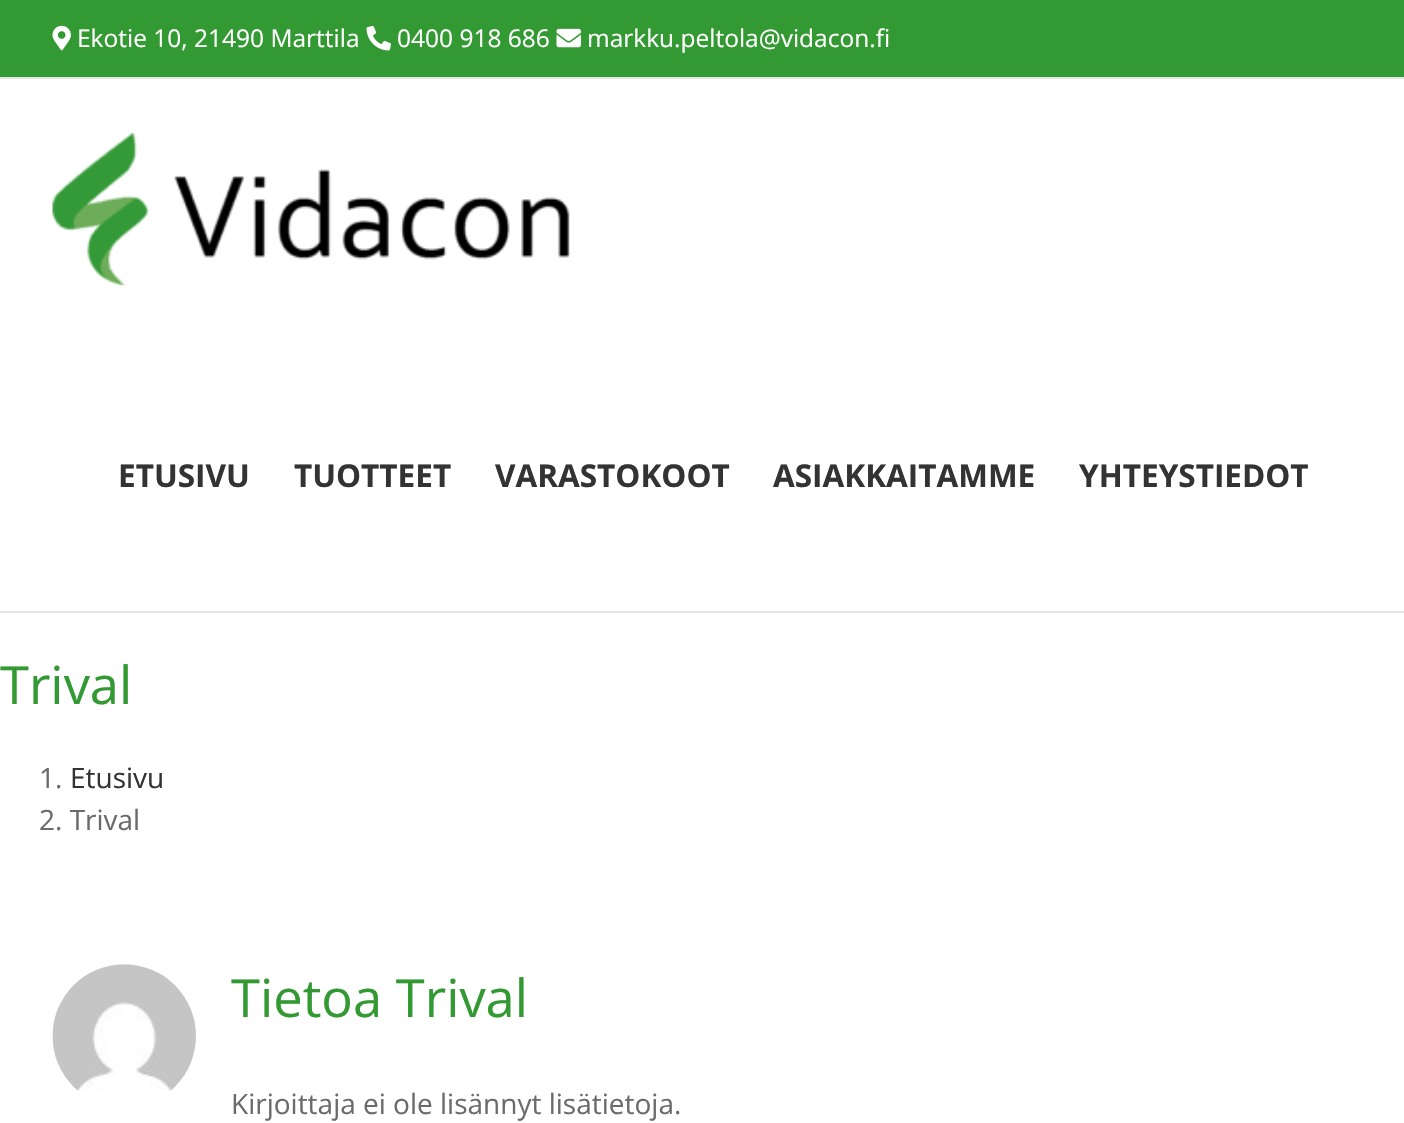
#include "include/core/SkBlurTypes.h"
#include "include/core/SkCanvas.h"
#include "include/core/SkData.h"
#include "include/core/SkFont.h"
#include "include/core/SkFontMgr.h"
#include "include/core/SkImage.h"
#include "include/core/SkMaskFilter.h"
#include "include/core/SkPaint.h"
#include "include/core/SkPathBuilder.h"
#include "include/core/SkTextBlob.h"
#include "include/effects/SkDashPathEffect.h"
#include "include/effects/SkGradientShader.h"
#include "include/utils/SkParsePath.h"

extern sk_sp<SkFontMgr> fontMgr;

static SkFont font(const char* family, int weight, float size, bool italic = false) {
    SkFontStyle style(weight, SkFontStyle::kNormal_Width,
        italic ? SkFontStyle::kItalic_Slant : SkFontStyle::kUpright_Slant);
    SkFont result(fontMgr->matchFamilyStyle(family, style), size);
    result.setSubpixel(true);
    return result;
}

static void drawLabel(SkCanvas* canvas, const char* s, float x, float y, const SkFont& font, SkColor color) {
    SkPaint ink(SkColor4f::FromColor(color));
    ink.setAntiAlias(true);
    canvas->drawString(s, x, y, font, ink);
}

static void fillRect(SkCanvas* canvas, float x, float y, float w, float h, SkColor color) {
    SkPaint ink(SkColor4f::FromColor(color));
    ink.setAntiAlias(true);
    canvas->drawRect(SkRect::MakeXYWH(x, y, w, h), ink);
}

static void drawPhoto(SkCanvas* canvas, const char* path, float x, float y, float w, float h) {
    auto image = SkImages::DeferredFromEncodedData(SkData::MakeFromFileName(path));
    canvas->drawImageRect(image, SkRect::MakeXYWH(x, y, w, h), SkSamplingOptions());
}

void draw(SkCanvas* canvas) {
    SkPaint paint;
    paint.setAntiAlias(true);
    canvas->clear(0xFFFFFFFF);
    fillRect(canvas, 0, 0, 1404, 77, 0xFF339933);
    fillRect(canvas, 0, 77, 1404, 2, 0xFFE5E5E5);
    drawPhoto(canvas, "assets/img1.png", 52, 25, 19, 26);
    SkFont font1 = font("Open Sans", 400, 24.5f);
    drawLabel(canvas, "Ekotie 10, 21490 Marttila", 77, 47, font1, 0xFFFFFFFF);
    drawPhoto(canvas, "assets/img2.png", 366, 26, 25, 25);
    drawLabel(canvas, "0400 918 686", 397, 47, font1, 0xFFFFFFFF);
    drawPhoto(canvas, "assets/img3.png", 556, 28, 25, 20);
    drawLabel(canvas, "markku.peltola@vidacon.fi", 587, 47, font1, 0xFFFFFFFF);
    fillRect(canvas, 0, 611, 1404, 2, 0xFFE5E5E5);
    drawPhoto(canvas, "assets/img4.png", 52, 133, 518, 153);
    SkFont font2 = font("Open Sans", 700, 31.5f);
    drawLabel(canvas, "ETUSIVU", 118, 487, font2, 0xFF333333);
    drawLabel(canvas, "TUOTTEET", 294, 487, font2, 0xFF333333);
    drawLabel(canvas, "VARASTOKOOT", 495, 487, font2, 0xFF333333);
    drawLabel(canvas, "ASIAKKAITAMME", 773, 487, font2, 0xFF333333);
    drawLabel(canvas, "YHTEYSTIEDOT", 1079, 487, font2, 0xFF333333);
    SkFont font3 = font("Open Sans", 400, 52.5f);
    drawLabel(canvas, "Trival", 0, 704, font3, 0xFF339933);
    SkFont font4 = font("Open Sans", 400, 28);
    drawLabel(canvas, "1.", 39, 788, font4, 0xFF6B6B6B);
    drawLabel(canvas, "Etusivu", 70, 788, font4, 0xFF333333);
    drawLabel(canvas, "2. Trival", 39, 830, font4, 0xFF6B6B6B);
    drawPhoto(canvas, "assets/img5.png", 52, 964, 144, 127);
    drawLabel(canvas, "Tietoa Trival", 231, 1017, font3, 0xFF339933);
    drawLabel(canvas, "Kirjoittaja ei ole lisännyt lisätietoja.", 231, 1114, font4, 0xFF6B6B6B);
}
